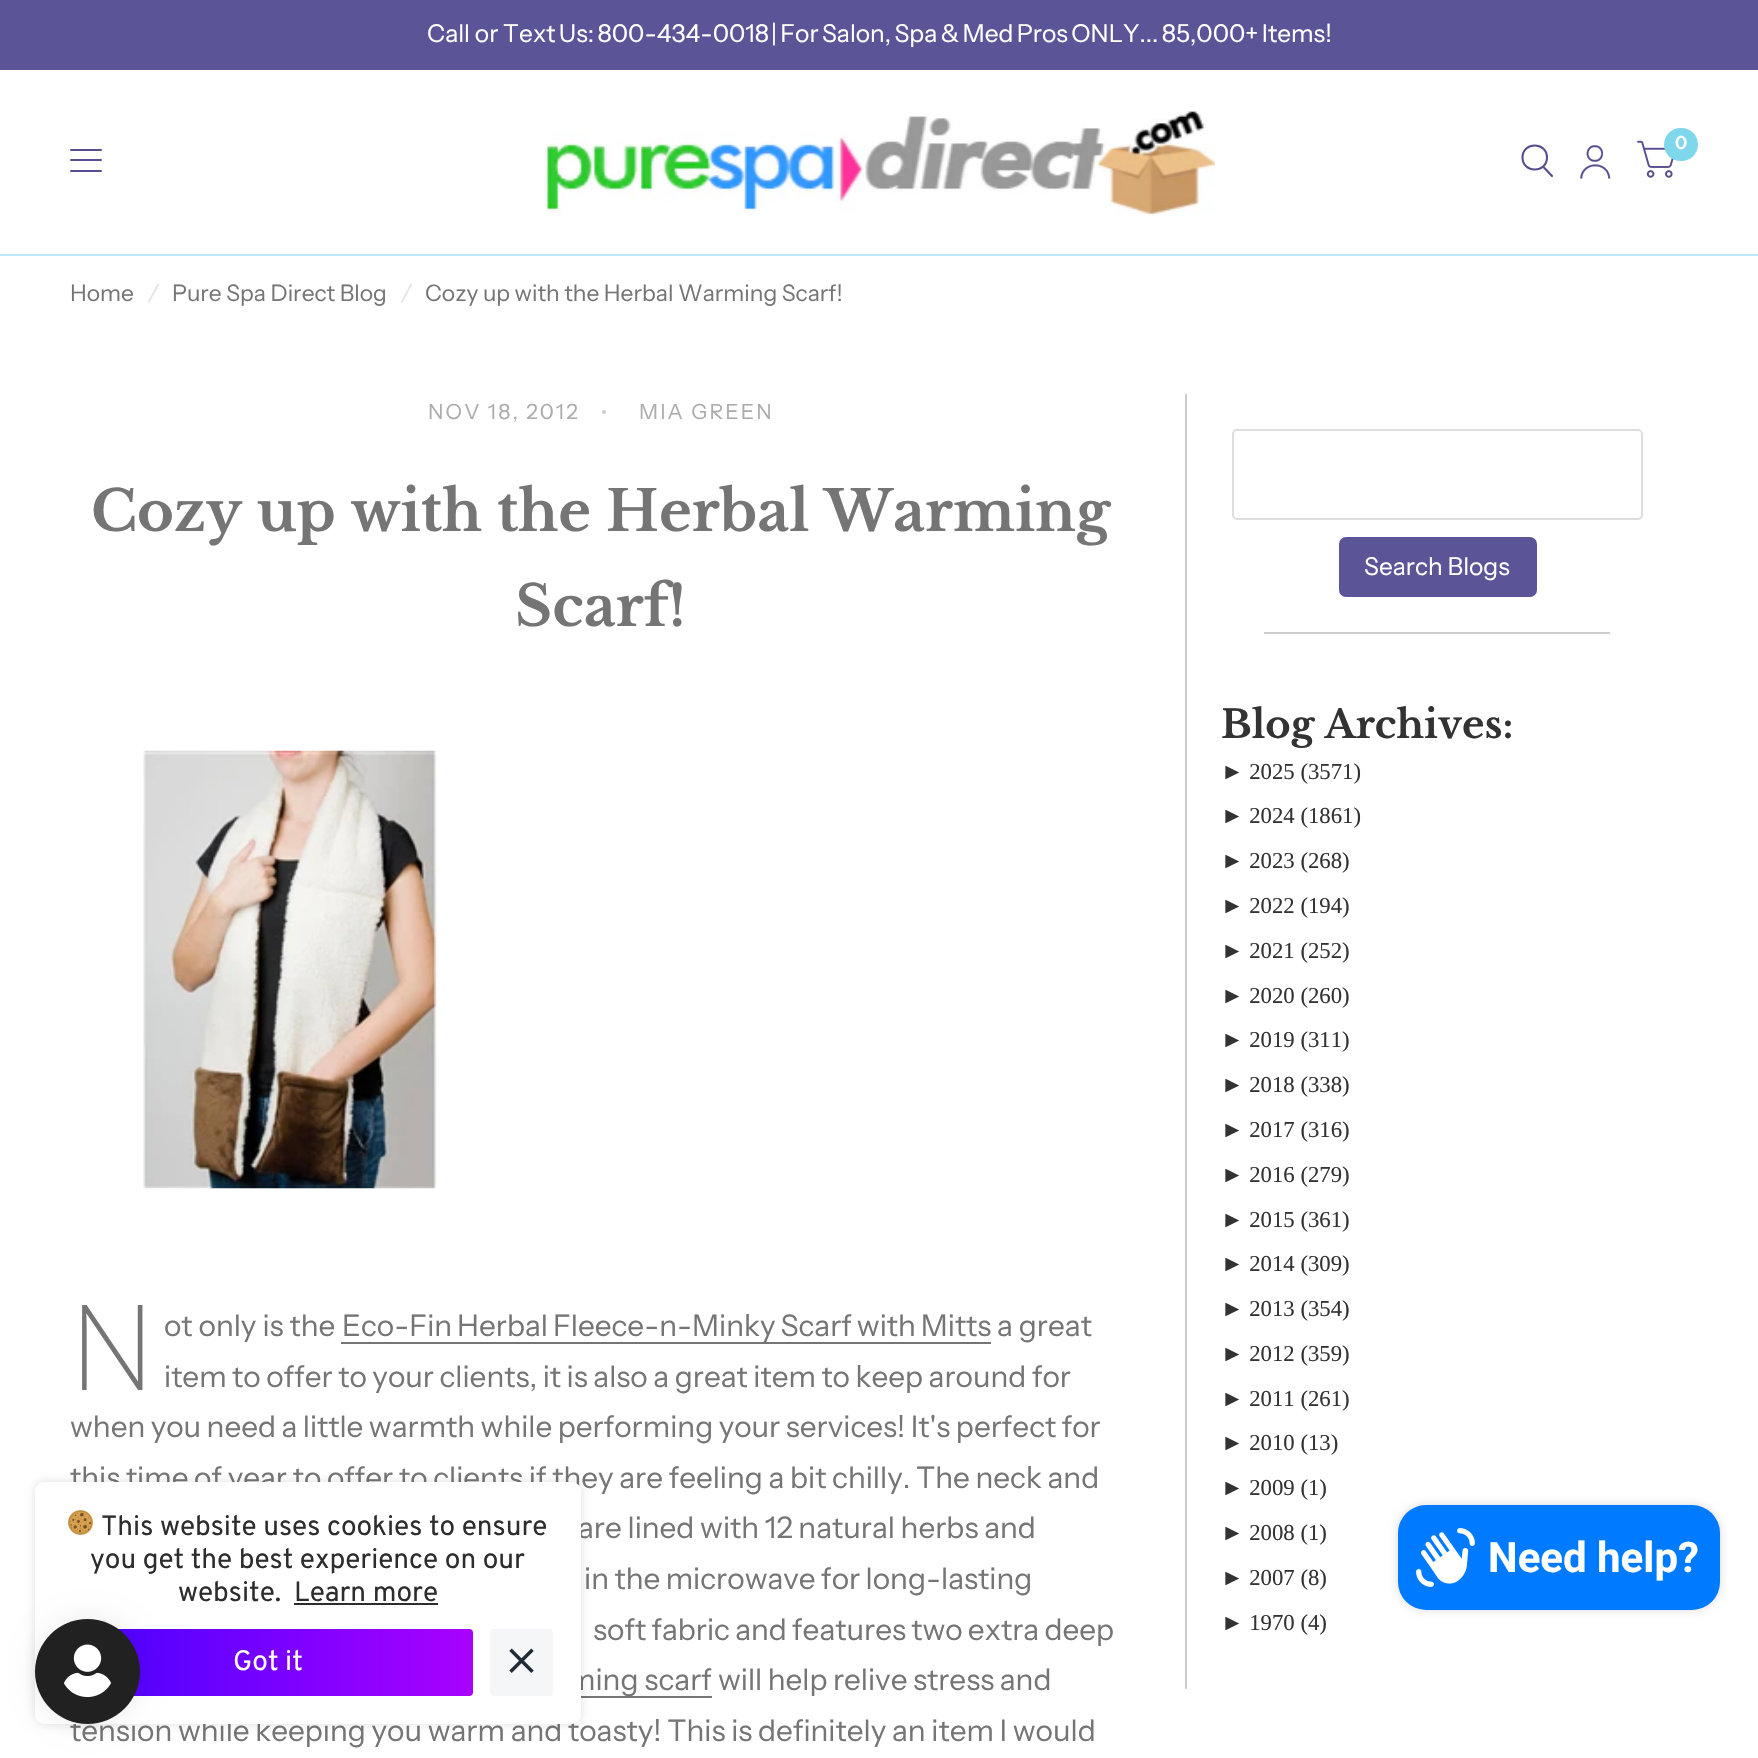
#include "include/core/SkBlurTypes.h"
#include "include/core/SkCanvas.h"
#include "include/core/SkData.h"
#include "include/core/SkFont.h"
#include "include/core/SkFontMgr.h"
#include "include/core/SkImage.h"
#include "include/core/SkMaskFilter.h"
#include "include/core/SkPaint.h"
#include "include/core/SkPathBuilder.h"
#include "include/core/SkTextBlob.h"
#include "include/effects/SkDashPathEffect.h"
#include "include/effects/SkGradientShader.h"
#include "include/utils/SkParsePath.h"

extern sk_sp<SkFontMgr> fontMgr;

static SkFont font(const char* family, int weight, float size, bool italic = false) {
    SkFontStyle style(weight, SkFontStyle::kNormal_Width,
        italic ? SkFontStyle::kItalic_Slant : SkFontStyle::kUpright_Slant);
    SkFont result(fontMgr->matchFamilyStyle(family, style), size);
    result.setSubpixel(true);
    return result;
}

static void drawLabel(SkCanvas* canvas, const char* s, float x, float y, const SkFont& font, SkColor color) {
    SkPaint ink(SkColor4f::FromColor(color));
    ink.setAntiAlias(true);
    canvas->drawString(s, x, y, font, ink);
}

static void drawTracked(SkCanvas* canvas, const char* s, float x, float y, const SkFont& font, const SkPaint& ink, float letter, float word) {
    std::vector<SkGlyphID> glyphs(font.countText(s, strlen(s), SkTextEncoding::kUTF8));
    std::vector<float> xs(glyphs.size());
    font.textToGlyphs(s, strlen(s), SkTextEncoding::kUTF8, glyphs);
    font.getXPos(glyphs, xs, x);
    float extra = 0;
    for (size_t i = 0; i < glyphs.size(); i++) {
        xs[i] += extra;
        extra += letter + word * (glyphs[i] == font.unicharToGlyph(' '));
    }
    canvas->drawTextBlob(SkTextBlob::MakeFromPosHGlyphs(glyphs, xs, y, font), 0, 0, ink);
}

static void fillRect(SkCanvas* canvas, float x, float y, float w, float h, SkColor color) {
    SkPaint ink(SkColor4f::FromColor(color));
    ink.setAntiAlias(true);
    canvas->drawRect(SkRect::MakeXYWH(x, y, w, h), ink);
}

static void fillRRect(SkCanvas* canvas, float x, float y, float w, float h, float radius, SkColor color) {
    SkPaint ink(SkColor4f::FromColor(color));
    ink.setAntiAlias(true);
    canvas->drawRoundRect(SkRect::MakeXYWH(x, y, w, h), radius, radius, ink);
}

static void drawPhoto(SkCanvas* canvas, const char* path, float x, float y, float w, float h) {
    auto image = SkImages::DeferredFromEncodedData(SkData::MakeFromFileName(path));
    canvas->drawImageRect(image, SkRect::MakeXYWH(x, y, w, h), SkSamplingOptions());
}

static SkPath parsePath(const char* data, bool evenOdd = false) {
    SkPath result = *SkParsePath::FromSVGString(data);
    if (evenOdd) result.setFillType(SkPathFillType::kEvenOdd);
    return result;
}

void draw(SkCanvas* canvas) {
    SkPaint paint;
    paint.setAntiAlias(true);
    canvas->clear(0xFFFFFFFF);
    fillRect(canvas, 0, 0, 1758, 70, 0xFF5B5497);
    SkFont font1 = font("Instrument Sans", 400, 24.5f);
    drawLabel(canvas, "Call or", 427, 42, font1, 0xFFFFFFFF);
    paint.setColor(0xFFFFFFFF);
    drawTracked(canvas, "Text Us: 800-434-0018", 503, 42, font1, paint, 0, -1.5f);
    drawTracked(canvas, "| For Salon, Spa & Med Pros ONLY... 85,000+ Items!", 771, 42, font1, paint, 0, -1.5f);
    fillRect(canvas, 0, 254, 1758, 2, 0xFFBCE7FD);
    drawPhoto(canvas, "assets/img1.png", 544, 111, 671, 105);
    paint.setStroke(true);
    paint.setStrokeWidth(2.1f);
    paint.setStrokeCap(SkPaint::kRound_Cap);
    paint.setStrokeJoin(SkPaint::kRound_Join);
    paint.setColor(0xFF584D8F);
    canvas->drawPath(parsePath("M1543.5 167L1552 176M1547 157.5C1547 173.5 1522.5 173.5 1522.5 157.5C1522.5 141.5 1547 141.5 1547 157.5Z"), paint);
    drawPhoto(canvas, "assets/img2.png", 1580, 145, 31, 34);
    drawPhoto(canvas, "assets/img3.png", 1637, 140, 37, 38);
    fillRRect(canvas, 1664, 128, 34, 33, 16.5f, 0xFF7FD7EB);
    SkFont font2 = font("Instrument Sans", 600, 18);
    drawLabel(canvas, "0", 1675, 149, font2, 0xFFFFFFFF);
    fillRRect(canvas, 70, 149, 32, 2, 1, 0xFF584D8F);
    fillRRect(canvas, 70, 159, 32, 2, 1, 0xFF584D8F);
    fillRRect(canvas, 70, 170, 32, 2, 1, 0xFF584D8F);
    SkFont font3 = font("Instrument Sans", 400, 22.75f);
    drawLabel(canvas, "Home", 70, 301, font3, 0xFF757575);
    SkFont font4 = font("Instrument Sans", 400, 22.75f, true);
    drawLabel(canvas, "/", 148, 301, font4, 0xFFE3E3E3);
    drawLabel(canvas, "Pure Spa Direct Blog", 172, 301, font3, 0xFF757575);
    drawLabel(canvas, "/", 401, 301, font4, 0xFFE3E3E3);
    drawLabel(canvas, "Cozy up with the Herbal Warming Scarf!", 425, 301, font3, 0xFF757575);
    SkFont font5 = font("Instrument Sans", 400, 21);
    paint.setStroke(false);
    paint.setColor(0xFFACACAC);
    drawTracked(canvas, "NOV 18, 2012", 428, 419, font5, paint, 2.1f, 0);
    paint.setColor(0xFFCDCDCD);
    canvas->drawCircle(604, 412, 2, paint);
    paint.setColor(0xFFACACAC);
    drawTracked(canvas, "MIA GREEN", 639, 419, font5, paint, 2.1f, 0);
    SkFont font6 = font("Libre Baskerville", 700, 56);
    drawLabel(canvas, "Cozy up with the Herbal Warming", 91, 531, font6, 0xFF757575);
    drawLabel(canvas, "Scarf!", 515, 626, font6, 0xFF757575);
    drawPhoto(canvas, "assets/img4.png", 143, 750, 298, 439);
    SkFont font7 = font("Noto Sans", 200, 119);
    drawLabel(canvas, "N", 70, 1390, font7, 0xFF757575);
    SkFont font8 = font("Instrument Sans", 400, 29.75f);
    drawLabel(canvas, "ot only is the", 164, 1336, font8, 0xFF757575);
    fillRect(canvas, 341, 1342, 650, 2, 0xFF757575);
    paint.setColor(0xFF757575);
    drawTracked(canvas, "Eco-Fin Herbal Fleece-n-Minky Scarf with Mitts", 342, 1336, font8, paint, 0, -1);
    drawLabel(canvas, "a great", 997, 1336, font8, 0xFF757575);
    drawTracked(canvas, "item to offer to your clients, it is also a great item to keep around for", 164, 1387, font8, paint, 0, -0.4f);
    drawTracked(canvas, "when you need a little warmth while performing your services! It's perfect for", 70, 1437, font8, paint, 0, -0.5f);
    drawTracked(canvas, "this time of year to offer to clients if they are feeling a bit chilly. The neck and", 70, 1488, font8, paint, 0, -0.3f);
    drawTracked(canvas, "are lined with 12 natural herbs and", 578, 1538, font8, paint, 0, -0.25f);
    drawTracked(canvas, "in the microwave for long-lasting", 584, 1589, font8, paint, 0, -0.5f);
    drawTracked(canvas, "soft fabric and features two extra deep", 593, 1640, font8, paint, 0, -0.75f);
    fillRect(canvas, 581, 1696, 131, 2, 0xFF757575);
    drawLabel(canvas, "ming scarf", 568, 1690, font8, 0xFF757575);
    drawTracked(canvas, "will help relive stress and", 718, 1690, font8, paint, 0, -0.5f);
    drawTracked(canvas, "tension while keeping you warm and toasty! This is definitely an item I would", 70, 1741, font8, paint, 0, -0.25f);
    fillRect(canvas, 1185, 394, 2, 1295, 0xFFCCCCCC);
    paint.setStroke(true);
    paint.setStrokeWidth(2);
    paint.setStrokeCap(SkPaint::kButt_Cap);
    paint.setStrokeJoin(SkPaint::kMiter_Join);
    paint.setColor(0xFFDEDEDE);
    canvas->drawRoundRect(SkRect::MakeXYWH(1233, 430, 409, 89), 4, 4, paint);
    fillRRect(canvas, 1339, 537, 198, 60, 7, 0xFF5B5497);
    drawLabel(canvas, "Search Blogs", 1364, 575, font1, 0xFFFFFFFF);
    fillRect(canvas, 1264, 632, 346, 2, 0xFFCCCCCC);
    SkFont font9 = font("Libre Baskerville", 700, 38.5f);
    drawLabel(canvas, "Blog Archives:", 1221, 738, font9, 0xFF333333);
    SkFont font10 = font("Liberation Serif", 400, 22.75f);
    drawLabel(canvas, "► 2025 (3571)", 1221, 779, font10, 0xFF333333);
    drawLabel(canvas, "► 2024 (1861)", 1221, 823, font10, 0xFF333333);
    drawLabel(canvas, "► 2023 (268)", 1221, 868, font10, 0xFF333333);
    drawLabel(canvas, "► 2022 (194)", 1221, 913, font10, 0xFF333333);
    drawLabel(canvas, "► 2021 (252)", 1221, 958, font10, 0xFF333333);
    drawLabel(canvas, "► 2020 (260)", 1221, 1003, font10, 0xFF333333);
    drawLabel(canvas, "► 2019 (311)", 1221, 1047, font10, 0xFF333333);
    drawLabel(canvas, "► 2018 (338)", 1221, 1092, font10, 0xFF333333);
    drawLabel(canvas, "► 2017 (316)", 1221, 1137, font10, 0xFF333333);
    drawLabel(canvas, "► 2016 (279)", 1221, 1182, font10, 0xFF333333);
    drawLabel(canvas, "► 2015 (361)", 1221, 1227, font10, 0xFF333333);
    drawLabel(canvas, "► 2014 (309)", 1221, 1271, font10, 0xFF333333);
    drawLabel(canvas, "► 2013 (354)", 1221, 1316, font10, 0xFF333333);
    drawLabel(canvas, "► 2012 (359)", 1221, 1361, font10, 0xFF333333);
    drawLabel(canvas, "► 2011 (261)", 1221, 1406, font10, 0xFF333333);
    drawLabel(canvas, "► 2010 (13)", 1221, 1450, font10, 0xFF333333);
    drawLabel(canvas, "► 2009 (1)", 1221, 1495, font10, 0xFF333333);
    drawLabel(canvas, "► 2008 (1)", 1221, 1540, font10, 0xFF333333);
    drawLabel(canvas, "► 2007 (8)", 1221, 1585, font10, 0xFF333333);
    drawLabel(canvas, "► 1970 (4)", 1221, 1630, font10, 0xFF333333);
    fillRRect(canvas, 35, 1482, 546, 242, 9, 0xFFFFFFFF);
    canvas->save();
    canvas->clipPath(parsePath("M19 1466H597V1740H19ZM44 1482H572C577 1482 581 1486 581 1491V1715C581 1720 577 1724 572 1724H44C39 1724 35 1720 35 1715V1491C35 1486 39 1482 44 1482Z", true), true);
    paint.setStroke(false);
    paint.setColor(0x1F000000);
    paint.setMaskFilter(SkMaskFilter::MakeBlur(kNormal_SkBlurStyle, 5));
    canvas->drawRoundRect(SkRect::MakeXYWH(35, 1482, 546, 242), 9, 9, paint);
    paint.setMaskFilter(nullptr);
    canvas->restore();
    drawPhoto(canvas, "assets/img5.png", 68, 1510, 25, 25);
    SkFont font11 = font("Overpass", 400, 28);
    drawLabel(canvas, "This website uses cookies to ensure", 101, 1535, font11, 0xFF2D2D2D);
    drawLabel(canvas, "you get the best experience on our", 90, 1568, font11, 0xFF2D2D2D);
    drawLabel(canvas, "website.", 178, 1601, font11, 0xFF2D2D2D);
    drawLabel(canvas, "Learn more", 294, 1601, font11, 0xFF2D2D2D);
    fillRect(canvas, 294, 1603, 144, 2, 0xFF2D2D2D);
    {
        const SkColor colors[] = {0xFF4401FF, 0xFFA901FF};
        const float stops[] = {0, 1};
        const SkPoint ends[] = {{63, 1663}, {473, 1663}};
        paint.setShader(SkGradientShader::MakeLinear(ends, colors, stops, 2, SkTileMode::kClamp));
        paint.setAlpha(255);
    }
    canvas->drawRoundRect(SkRect::MakeXYWH(63, 1629, 410, 67), 4, 4, paint);
    drawLabel(canvas, "Got it", 233, 1670, font11, 0xFFFFFFFF);
    fillRRect(canvas, 490, 1629, 63, 67, 4, 0xFFF4F6F8);
    drawPhoto(canvas, "assets/img6.png", 509, 1648, 25, 25);
    paint.setShader(nullptr);
    paint.setColor(0x26000000);
    paint.setMaskFilter(SkMaskFilter::MakeBlur(kNormal_SkBlurStyle, 4.5f));
    canvas->drawRoundRect(SkRect::MakeXYWH(1398, 1505, 322, 105), 28, 28, paint);
    paint.setMaskFilter(nullptr);
    fillRRect(canvas, 1398, 1505, 322, 105, 28, 0xFF007BFF);
    drawPhoto(canvas, "assets/img7.png", 1416, 1528, 59, 59);
    SkFont font12 = font("Roboto", 700, 42);
    drawLabel(canvas, "Need help?", 1488, 1572, font12, 0xFFFFFFFF);
    paint.setColor(0x14000000);
    paint.setMaskFilter(SkMaskFilter::MakeBlur(kNormal_SkBlurStyle, 13));
    canvas->drawRoundRect(SkRect::MakeXYWH(35, 1619, 105, 105), 52.5f, 52.5f, paint);
    paint.setMaskFilter(nullptr);
    paint.setColor(0xFF212121);
    canvas->drawCircle(87.5f, 1671.5f, 52.5f, paint);
    drawPhoto(canvas, "assets/img8.png", 64, 1644, 47, 54);
}
